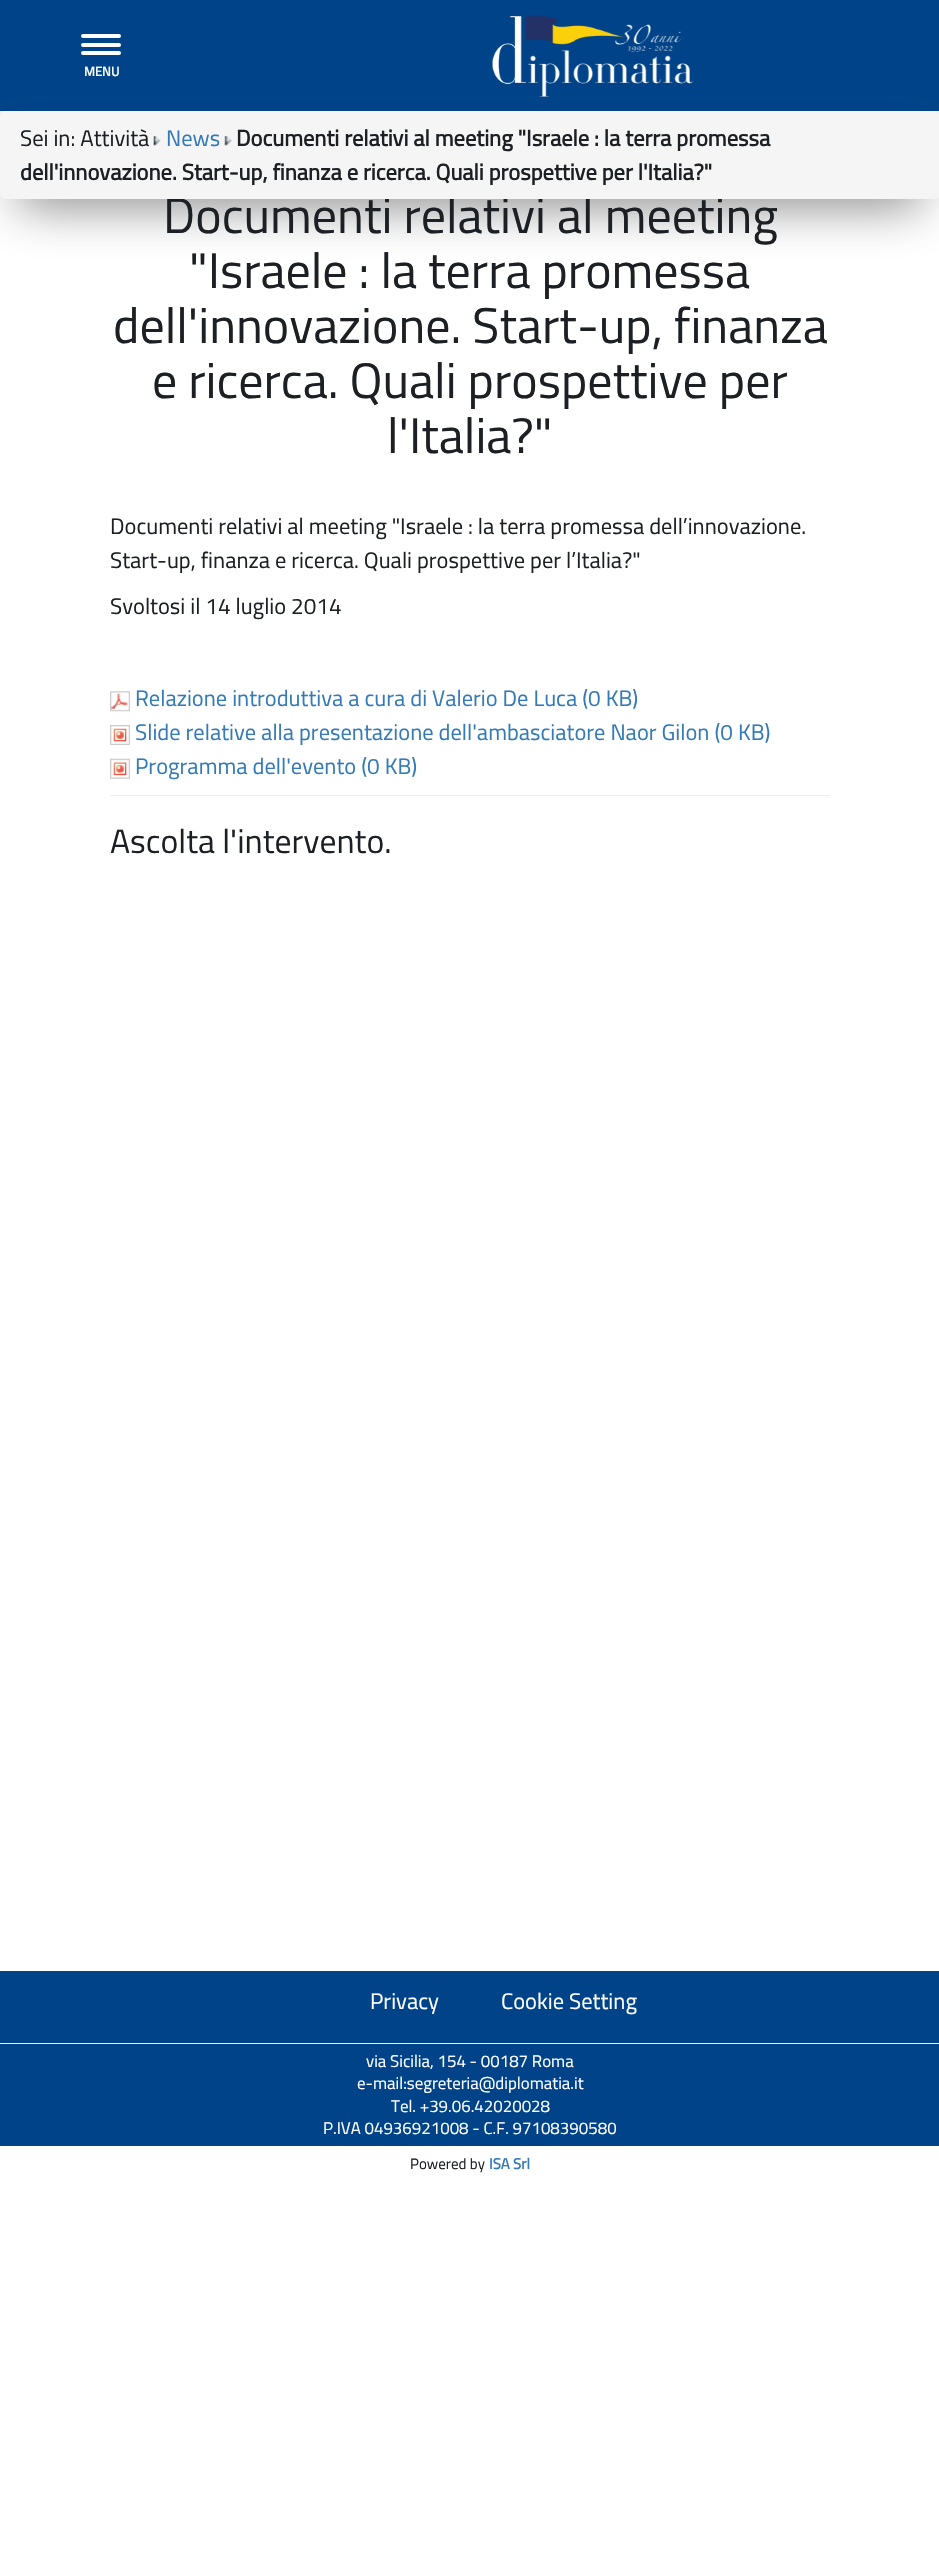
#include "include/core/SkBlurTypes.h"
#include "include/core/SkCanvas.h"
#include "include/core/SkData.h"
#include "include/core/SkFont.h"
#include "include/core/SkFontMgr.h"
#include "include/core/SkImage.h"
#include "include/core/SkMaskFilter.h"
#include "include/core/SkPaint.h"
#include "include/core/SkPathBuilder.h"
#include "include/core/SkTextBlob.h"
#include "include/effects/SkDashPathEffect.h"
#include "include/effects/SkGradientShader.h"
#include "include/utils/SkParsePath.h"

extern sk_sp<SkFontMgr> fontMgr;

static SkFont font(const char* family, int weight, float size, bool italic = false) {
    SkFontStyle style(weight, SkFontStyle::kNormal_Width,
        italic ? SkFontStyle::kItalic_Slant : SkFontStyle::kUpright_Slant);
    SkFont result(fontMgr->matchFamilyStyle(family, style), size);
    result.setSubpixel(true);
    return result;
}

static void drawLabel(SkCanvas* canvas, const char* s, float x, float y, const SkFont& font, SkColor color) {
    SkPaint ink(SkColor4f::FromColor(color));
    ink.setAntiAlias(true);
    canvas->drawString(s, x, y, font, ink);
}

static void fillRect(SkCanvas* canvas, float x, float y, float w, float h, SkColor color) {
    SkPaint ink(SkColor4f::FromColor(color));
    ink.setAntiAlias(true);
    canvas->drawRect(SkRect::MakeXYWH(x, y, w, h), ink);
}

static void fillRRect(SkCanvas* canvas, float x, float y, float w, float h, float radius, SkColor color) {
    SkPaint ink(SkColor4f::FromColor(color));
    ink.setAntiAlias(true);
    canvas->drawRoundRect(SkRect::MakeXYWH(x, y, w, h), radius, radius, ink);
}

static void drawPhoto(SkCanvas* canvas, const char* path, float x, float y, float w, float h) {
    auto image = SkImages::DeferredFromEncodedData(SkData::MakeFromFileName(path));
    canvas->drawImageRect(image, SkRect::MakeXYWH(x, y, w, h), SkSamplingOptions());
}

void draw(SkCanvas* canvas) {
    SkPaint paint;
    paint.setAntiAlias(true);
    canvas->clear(0xFFFFFFFF);
    paint.setColor(0xA63F3F3F);
    paint.setMaskFilter(SkMaskFilter::MakeBlur(kNormal_SkBlurStyle, 25));
    canvas->drawRect(SkRect::MakeXYWH(19, 44, 902, 74), paint);
    paint.setMaskFilter(nullptr);
    fillRect(canvas, 0, 0, 939, 111, 0xFF004388);
    fillRRect(canvas, 81, 34, 40, 4, 2, 0xFFFFFFFF);
    fillRRect(canvas, 81, 43, 40, 4, 2, 0xFFFFFFFF);
    fillRRect(canvas, 81, 51, 40, 4, 2, 0xFFFFFFFF);
    SkFont font1 = font("Titillium Web", 700, 13);
    drawLabel(canvas, "MENU", 84, 76, font1, 0xFFFFFFFF);
    paint.setMaskFilter(SkMaskFilter::MakeBlur(kNormal_SkBlurStyle, 25));
    canvas->drawRect(SkRect::MakeXYWH(19, 155, 902, 50), paint);
    paint.setMaskFilter(nullptr);
    drawPhoto(canvas, "assets/img1.png", 492, 16, 201, 81);
    SkFont font2 = font("Titillium Web", 400, 50);
    drawLabel(canvas, "Documenti relativi al meeting", 163, 233, font2, 0xFF1C2024);
    fillRRect(canvas, 0, 111, 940, 88, 5, 0xFFF5F5F5);
    SkFont font3 = font("Titillium Web", 400, 22.5f);
    drawLabel(canvas, "Sei in: Attività", 20, 146, font3, 0xFF1C2024);
    drawPhoto(canvas, "assets/img2.png", 153, 136, 8, 10);
    drawLabel(canvas, "News", 166, 146, font3, 0xFF337AB7);
    drawPhoto(canvas, "assets/img3.png", 224, 136, 8, 10);
    SkFont font4 = font("Titillium Web", 700, 22.5f);
    drawLabel(canvas, "Documenti relativi al meeting \"Israele : la terra promessa", 236, 146, font4, 0xFF1C2024);
    drawLabel(canvas, "dell'innovazione. Start-up, finanza e ricerca. Quali prospettive per l'Italia?\"", 20, 180, font4, 0xFF1C2024);
    drawLabel(canvas, "\"Israele : la terra promessa", 189, 288, font2, 0xFF1C2024);
    drawLabel(canvas, "dell'innovazione. Start-up, finanza", 113, 343, font2, 0xFF1C2024);
    drawLabel(canvas, "e ricerca. Quali prospettive per", 152, 398, font2, 0xFF1C2024);
    drawLabel(canvas, "l'Italia?\"", 387, 453, font2, 0xFF1C2024);
    drawLabel(canvas, "Documenti relativi al meeting \"Israele : la terra promessa dell’innovazione.", 110, 534, font3, 0xFF1C2024);
    drawLabel(canvas, "Start-up, finanza e ricerca. Quali prospettive per l’Italia?\"", 110, 568, font3, 0xFF1C2024);
    drawLabel(canvas, "Svoltosi il 14 luglio 2014", 110, 614, font3, 0xFF1C2024);
    drawPhoto(canvas, "assets/img4.png", 110, 691, 20, 21);
    drawLabel(canvas, "Relazione introduttiva a cura di Valerio De Luca (0 KB)", 135, 706, font3, 0xFF337AB7);
    drawPhoto(canvas, "assets/img5.png", 110, 725, 20, 20);
    drawLabel(canvas, "Slide relative alla presentazione dell'ambasciatore Naor Gilon (0 KB)", 135, 740, font3, 0xFF337AB7);
    drawPhoto(canvas, "assets/img6.png", 110, 758, 20, 21);
    drawLabel(canvas, "Programma dell'evento (0 KB)", 135, 774, font3, 0xFF337AB7);
    fillRect(canvas, 110, 795, 720, 1, 0xFFEEEEEE);
    SkFont font5 = font("Titillium Web", 400, 33.75f);
    drawLabel(canvas, "Ascolta l'intervento.", 110, 853, font5, 0xFF1C2024);
    fillRect(canvas, 0, 1971, 939, 175, 0xFF004388);
    drawLabel(canvas, "Privacy", 370, 2009, font3, 0xFFFFFFFF);
    drawLabel(canvas, "Cookie Setting", 501, 2009, font3, 0xFFFFFFFF);
    fillRect(canvas, 0, 2043, 939, 1, 0xFFEEEEEE);
    SkFont font6 = font("Titillium Web", 400, 16.9f);
    drawLabel(canvas, "via Sicilia, 154 - 00187 Roma", 366, 2067, font6, 0xFFFFFFFF);
    drawLabel(canvas, "e-mail:segreteria@diplomatia.it", 357, 2089, font6, 0xFFFFFFFF);
    drawLabel(canvas, "Tel. +39.06.42020028", 391, 2112, font6, 0xFFFFFFFF);
    drawLabel(canvas, "P.IVA 04936921008 - C.F. 97108390580", 323, 2134, font6, 0xFFFFFFFF);
    SkFont font7 = font("Titillium Web", 400, 15);
    drawLabel(canvas, "Powered by", 410, 2169, font7, 0xFF1C2024);
    SkFont font8 = font("Titillium Web", 700, 15);
    drawLabel(canvas, "ISA Srl", 489, 2169, font8, 0xFF337AB7);
}
